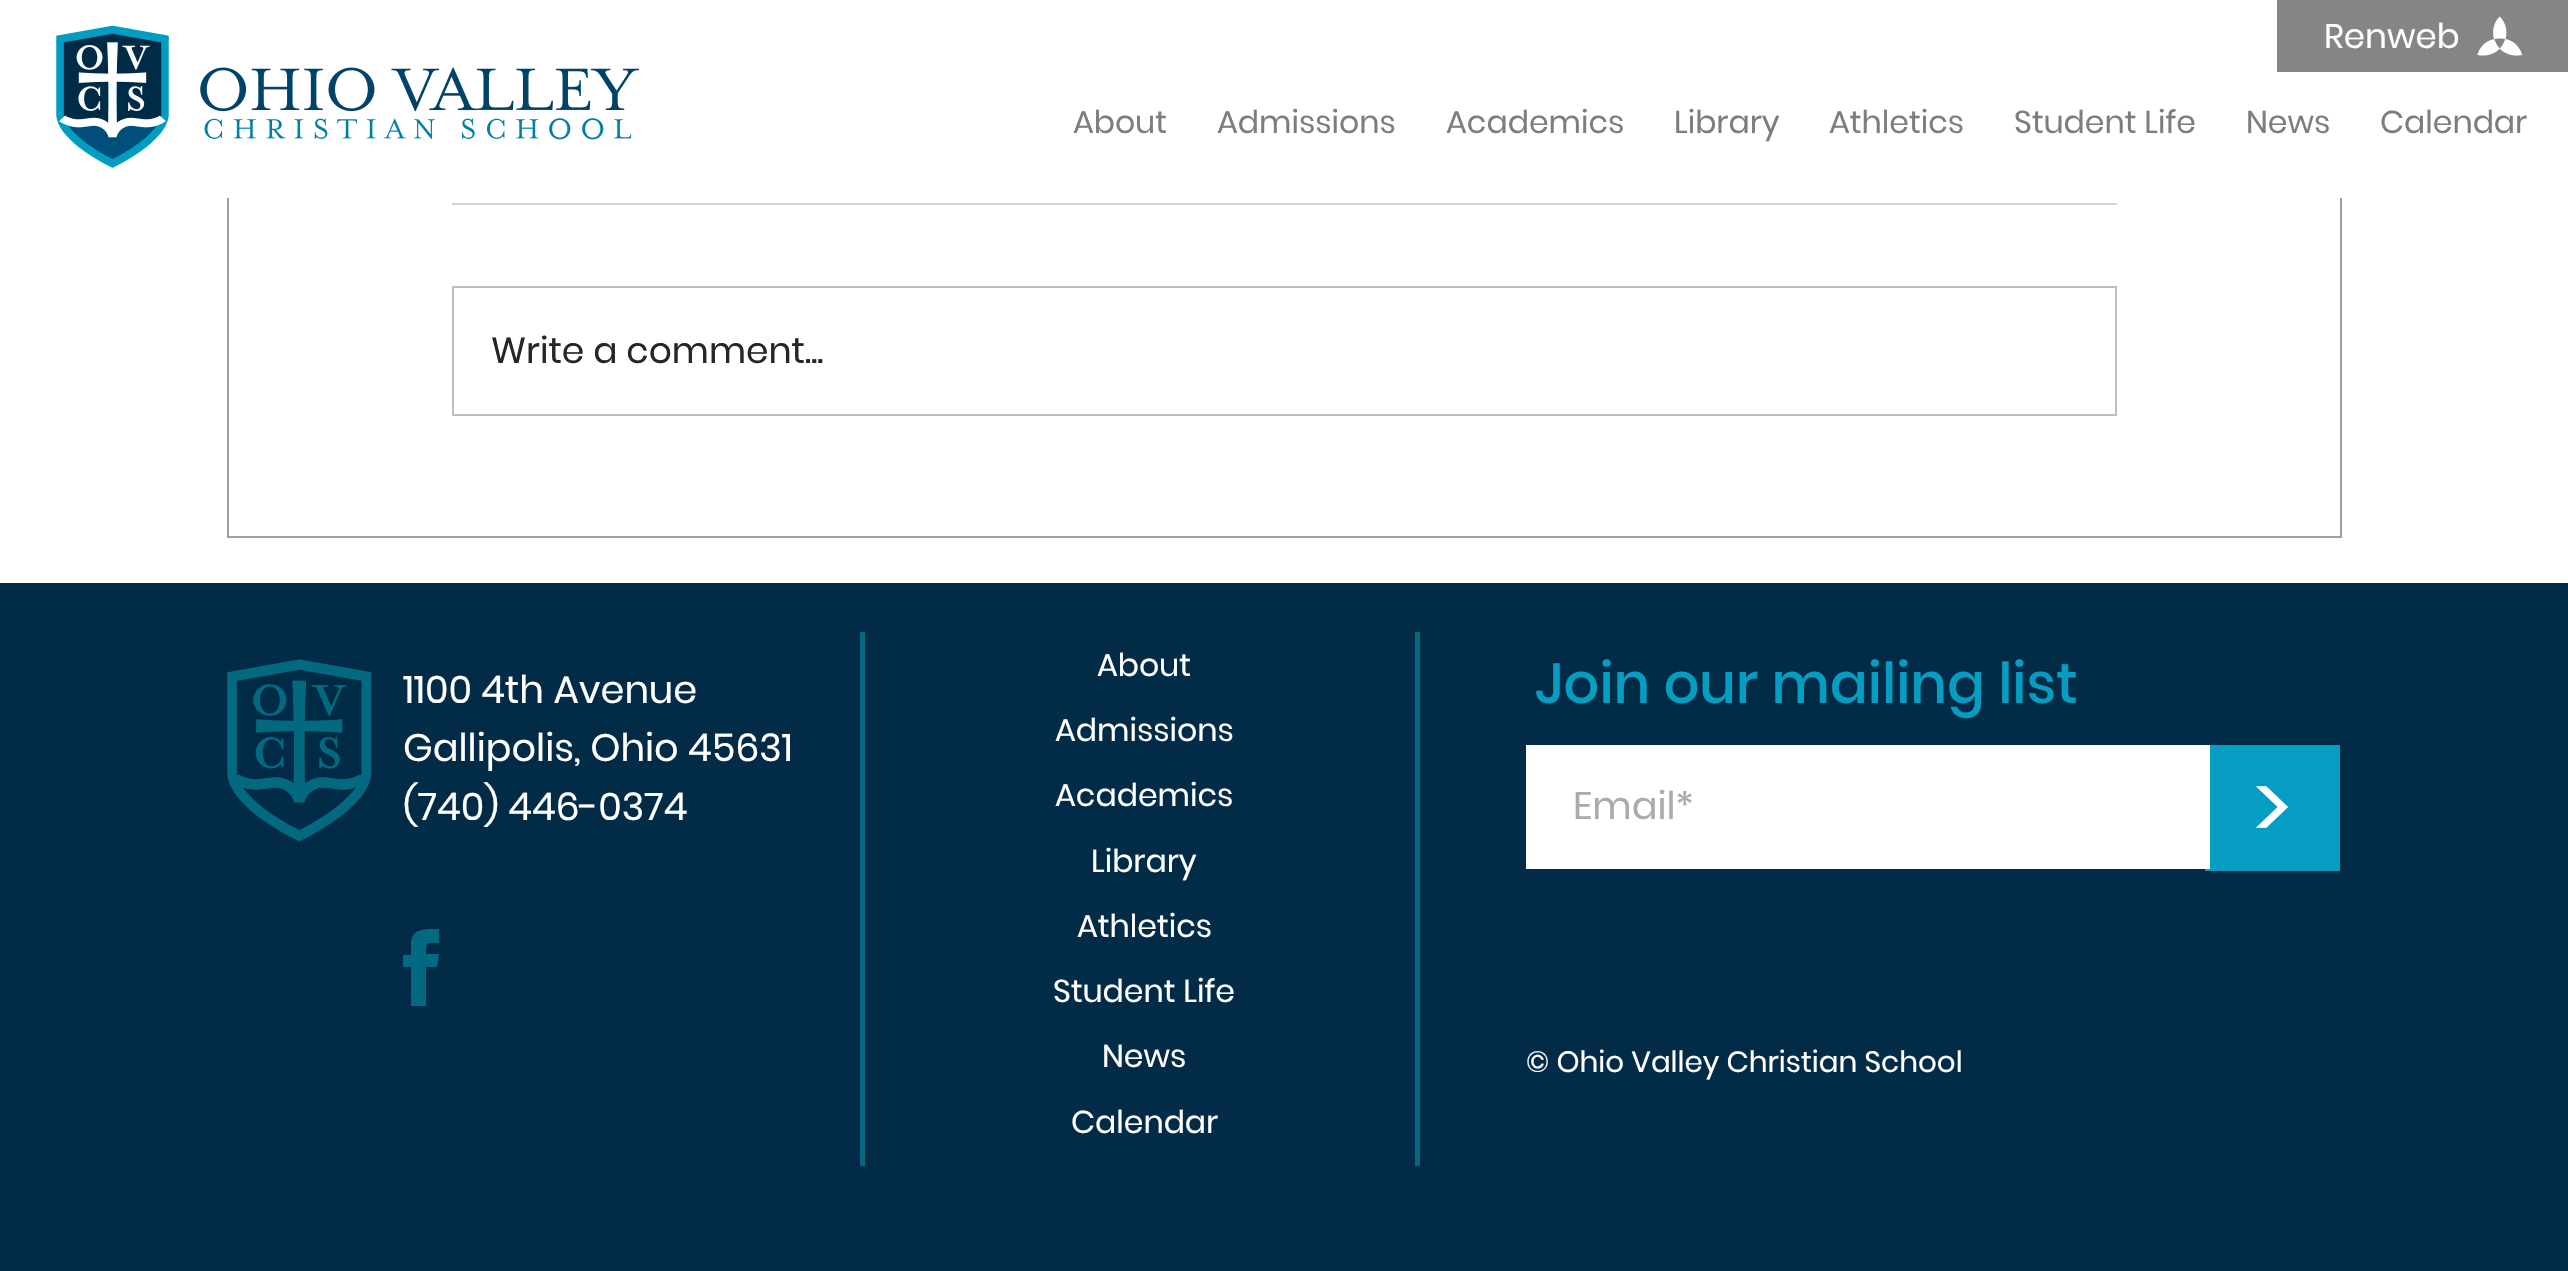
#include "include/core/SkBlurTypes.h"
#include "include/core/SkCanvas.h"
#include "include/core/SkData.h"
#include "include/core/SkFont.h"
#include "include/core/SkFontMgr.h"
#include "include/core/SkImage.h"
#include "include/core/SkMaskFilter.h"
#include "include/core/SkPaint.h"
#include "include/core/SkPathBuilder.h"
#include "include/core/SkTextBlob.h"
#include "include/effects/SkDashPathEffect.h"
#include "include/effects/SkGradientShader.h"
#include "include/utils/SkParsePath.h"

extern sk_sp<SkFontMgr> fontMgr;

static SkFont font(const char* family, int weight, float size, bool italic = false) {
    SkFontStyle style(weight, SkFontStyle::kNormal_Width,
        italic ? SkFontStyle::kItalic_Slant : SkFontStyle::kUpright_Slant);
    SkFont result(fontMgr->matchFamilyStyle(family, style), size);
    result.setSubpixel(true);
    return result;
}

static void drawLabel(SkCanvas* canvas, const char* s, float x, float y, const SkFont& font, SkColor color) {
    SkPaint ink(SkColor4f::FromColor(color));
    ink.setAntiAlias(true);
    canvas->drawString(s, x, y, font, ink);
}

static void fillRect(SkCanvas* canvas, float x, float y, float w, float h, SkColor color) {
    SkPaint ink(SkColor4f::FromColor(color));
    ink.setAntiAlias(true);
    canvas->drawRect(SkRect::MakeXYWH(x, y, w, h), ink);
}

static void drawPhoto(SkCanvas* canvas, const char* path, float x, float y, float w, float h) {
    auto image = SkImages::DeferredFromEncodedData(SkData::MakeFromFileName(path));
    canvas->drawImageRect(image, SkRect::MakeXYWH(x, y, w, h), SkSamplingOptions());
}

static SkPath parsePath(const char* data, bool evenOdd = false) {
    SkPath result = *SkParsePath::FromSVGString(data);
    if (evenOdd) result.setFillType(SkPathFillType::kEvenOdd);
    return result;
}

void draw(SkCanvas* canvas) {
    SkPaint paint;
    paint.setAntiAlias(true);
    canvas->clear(0xFFFFFFFF);
    paint.setStroke(true);
    paint.setStrokeWidth(2);
    paint.setColor(0xFF9E9E9E);
    canvas->drawRect(SkRect::MakeXYWH(228, 10, 2113, 527), paint);
    fillRect(canvas, 227, 9, 2115, 189, 0xFFFFFFFF);
    drawPhoto(canvas, "assets/img1.png", 56, 25, 113, 143);
    drawPhoto(canvas, "assets/img2.png", 200, 67, 439, 73);
    fillRect(canvas, 2277, 0, 291, 72, 0xFF858585);
    SkFont font1 = font("Poppins", 400, 34);
    drawLabel(canvas, "Renweb", 2324, 48, font1, 0xFFFFFFFF);
    drawPhoto(canvas, "assets/img3.png", 2477, 16, 45, 40);
    SkFont font2 = font("Poppins", 400, 31.5f);
    drawLabel(canvas, "About", 1073, 133, font2, 0xFF7D7D7D);
    drawLabel(canvas, "Admissions", 1217, 133, font2, 0xFF7D7D7D);
    drawLabel(canvas, "Academics", 1446, 133, font2, 0xFF7D7D7D);
    drawLabel(canvas, "Library", 1674, 133, font2, 0xFF7D7D7D);
    drawLabel(canvas, "Athletics", 1829, 133, font2, 0xFF7D7D7D);
    drawLabel(canvas, "Student Life", 2014, 133, font2, 0xFF7D7D7D);
    drawLabel(canvas, "News", 2246, 133, font2, 0xFF7D7D7D);
    drawLabel(canvas, "Calendar", 2380, 133, font2, 0xFF7D7D7D);
    fillRect(canvas, 452, 203, 1665, 2, 0xFFD4D4D4);
    paint.setColor(0xFFBEBEBE);
    canvas->drawRect(SkRect::MakeXYWH(453, 287, 1663, 128), paint);
    SkFont font3 = font("Poppins", 400, 36);
    drawLabel(canvas, "Write a comment...", 491, 363, font3, 0xFF262626);
    fillRect(canvas, 0, 583, 2568, 688, 0xFF022B47);
    drawPhoto(canvas, "assets/img4.png", 227, 659, 145, 183);
    SkFont font4 = font("Poppins", 400, 38.25f);
    drawLabel(canvas, "1100 4th Avenue", 403, 703, font4, 0xFFFFFFFF);
    drawLabel(canvas, "Gallipolis, Ohio 45631", 403, 761, font4, 0xFFFFFFFF);
    drawLabel(canvas, "(740) 446-0374", 403, 820, font4, 0xFFFFFFFF);
    fillRect(canvas, 860, 632, 5, 534, 0xFF036981);
    drawLabel(canvas, "About", 1097, 676, font2, 0xFFFFFFFF);
    drawLabel(canvas, "Admissions", 1055, 741, font2, 0xFFFFFFFF);
    drawLabel(canvas, "Academics", 1055, 806, font2, 0xFFFFFFFF);
    drawLabel(canvas, "Library", 1091, 872, font2, 0xFFFFFFFF);
    drawLabel(canvas, "Athletics", 1077, 937, font2, 0xFFFFFFFF);
    drawLabel(canvas, "Student Life", 1053, 1002, font2, 0xFFFFFFFF);
    drawLabel(canvas, "News", 1102, 1067, font2, 0xFFFFFFFF);
    drawLabel(canvas, "Calendar", 1071, 1133, font2, 0xFFFFFFFF);
    fillRect(canvas, 1415, 632, 5, 534, 0xFF036981);
    SkFont font5 = font("Poppins", 500, 56.25f);
    drawLabel(canvas, "Join our mailing list", 1535, 703, font5, 0xFF059DC1);
    fillRect(canvas, 2205, 745, 135, 126, 0xFF059DC1);
    fillRect(canvas, 1526, 745, 684, 124, 0xFFFFFFFF);
    drawLabel(canvas, "Email*", 1573, 819, font4, 0xFFABABAB);
    SkFont font6 = font("Poppins", 400, 90);
    drawLabel(canvas, ">", 2253, 840, font6, 0xFFFFFFFF);
    paint.setStroke(false);
    paint.setColor(0xFF036981);
    canvas->drawPath(parsePath("M411 944V955H403V967H411V1006H426V967H437L439 954H426C426 941 426 943 439 943V929C427 929 411 927 411 944Z"), paint);
    SkFont font7 = font("Poppins", 400, 29.25f);
    drawLabel(canvas, "© Ohio Valley Christian School", 1526, 1072, font7, 0xFFFFFFFF);
}
